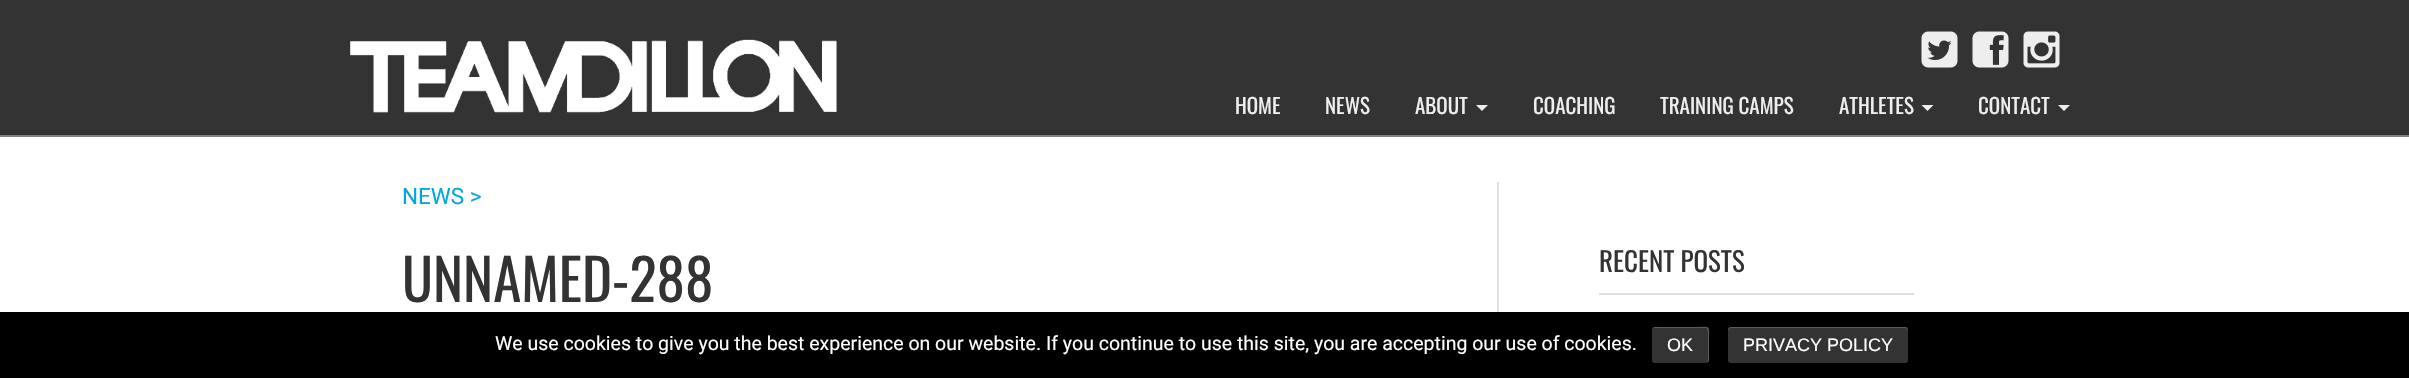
#include "include/core/SkBlurTypes.h"
#include "include/core/SkCanvas.h"
#include "include/core/SkData.h"
#include "include/core/SkFont.h"
#include "include/core/SkFontMgr.h"
#include "include/core/SkImage.h"
#include "include/core/SkMaskFilter.h"
#include "include/core/SkPaint.h"
#include "include/core/SkPathBuilder.h"
#include "include/core/SkTextBlob.h"
#include "include/effects/SkDashPathEffect.h"
#include "include/effects/SkGradientShader.h"
#include "include/utils/SkParsePath.h"

extern sk_sp<SkFontMgr> fontMgr;

static SkFont font(const char* family, int weight, float size, bool italic = false) {
    SkFontStyle style(weight, SkFontStyle::kNormal_Width,
        italic ? SkFontStyle::kItalic_Slant : SkFontStyle::kUpright_Slant);
    SkFont result(fontMgr->matchFamilyStyle(family, style), size);
    result.setSubpixel(true);
    return result;
}

static void drawLabel(SkCanvas* canvas, const char* s, float x, float y, const SkFont& font, SkColor color) {
    SkPaint ink(SkColor4f::FromColor(color));
    ink.setAntiAlias(true);
    canvas->drawString(s, x, y, font, ink);
}

static void fillRect(SkCanvas* canvas, float x, float y, float w, float h, SkColor color) {
    SkPaint ink(SkColor4f::FromColor(color));
    ink.setAntiAlias(true);
    canvas->drawRect(SkRect::MakeXYWH(x, y, w, h), ink);
}

static void fillRRect(SkCanvas* canvas, float x, float y, float w, float h, float radius, SkColor color) {
    SkPaint ink(SkColor4f::FromColor(color));
    ink.setAntiAlias(true);
    canvas->drawRoundRect(SkRect::MakeXYWH(x, y, w, h), radius, radius, ink);
}

static void drawPhoto(SkCanvas* canvas, const char* path, float x, float y, float w, float h) {
    auto image = SkImages::DeferredFromEncodedData(SkData::MakeFromFileName(path));
    canvas->drawImageRect(image, SkRect::MakeXYWH(x, y, w, h), SkSamplingOptions());
}

static SkPath parsePath(const char* data, bool evenOdd = false) {
    SkPath result = *SkParsePath::FromSVGString(data);
    if (evenOdd) result.setFillType(SkPathFillType::kEvenOdd);
    return result;
}

void draw(SkCanvas* canvas) {
    SkPaint paint;
    paint.setAntiAlias(true);
    canvas->clear(0xFFFFFFFF);
    fillRect(canvas, 0, 0, 2409, 135, 0xFF333333);
    fillRect(canvas, 0, 135, 2409, 2, 0xFF808080);
    drawPhoto(canvas, "assets/img1.png", 350, 39, 487, 74);
    drawPhoto(canvas, "assets/img2.png", 1921, 31, 37, 37);
    drawPhoto(canvas, "assets/img3.png", 1972, 31, 37, 37);
    drawPhoto(canvas, "assets/img4.png", 2023, 31, 37, 37);
    SkFont font1 = font("Oswald", 400, 21);
    drawLabel(canvas, "HOME", 1235, 114, font1, 0xFFEEEEEE);
    drawLabel(canvas, "NEWS", 1325, 114, font1, 0xFFEEEEEE);
    drawLabel(canvas, "ABOUT", 1415, 114, font1, 0xFFEEEEEE);
    paint.setColor(0xFFEEEEEE);
    canvas->drawPath(parsePath("M1476 105H1488L1482 111Z"), paint);
    drawLabel(canvas, "COACHING", 1533, 114, font1, 0xFFEEEEEE);
    drawLabel(canvas, "TRAINING CAMPS", 1660, 114, font1, 0xFFEEEEEE);
    drawLabel(canvas, "ATHLETES", 1839, 114, font1, 0xFFEEEEEE);
    canvas->drawPath(parsePath("M1921.5 105H1933.5L1927.5 111Z"), paint);
    drawLabel(canvas, "CONTACT", 1978, 114, font1, 0xFFEEEEEE);
    canvas->drawPath(parsePath("M2058 105H2070L2064 111Z"), paint);
    SkFont font2 = font("Roboto", 400, 22.5f);
    drawLabel(canvas, "NEWS >", 402, 204, font2, 0xFF01A7E1);
    SkFont font3 = font("Oswald", 400, 57);
    drawLabel(canvas, "UNNAMED-288", 402, 302, font3, 0xFF333333);
    fillRect(canvas, 1497, 182, 2, 130, 0xFFE0E0E0);
    fillRect(canvas, 1599, 293, 315, 2, 0xFFE0E0E0);
    SkFont font4 = font("Oswald", 400, 27);
    drawLabel(canvas, "RECENT POSTS", 1599, 272, font4, 0xFF333333);
    fillRect(canvas, 0, 312, 2409, 66, 0xFF000000);
    SkFont font5 = font("Roboto", 400, 19.5f);
    drawLabel(canvas, "We use cookies to give you the best experience on our website. If you continue to use this site, you are accepting our use of cookies.", 495, 350, font5, 0xFFFFFFFF);
    fillRRect(canvas, 1652, 327, 57, 36, 3, 0xFF333333);
    paint.setColor(0x33FFFFFF);
    canvas->drawPath(parsePath("M1654 328H1706C1709 329 1708 340 1708 342V362C1710 361 1709 357 1709 355V345C1709 323 1713 327 1689 327H1664C1657 327 1652 325 1652 332C1652 330 1653 328 1654 328Z"), paint);
    SkFont font6 = font("Liberation Sans", 400, 18);
    drawLabel(canvas, "OK", 1667, 351, font6, 0xFFFFFFFF);
    fillRRect(canvas, 1728, 327, 180, 36, 3, 0xFF333333);
    canvas->drawPath(parsePath("M1731 328H1905C1907 328 1908 330 1908 332V330C1908 328 1907 327 1905 327H1731C1729 327 1728 328 1728 330V332C1728 330 1729 328 1731 328Z"), paint);
    drawLabel(canvas, "PRIVACY POLICY", 1743, 351, font6, 0xFFFFFFFF);
}
